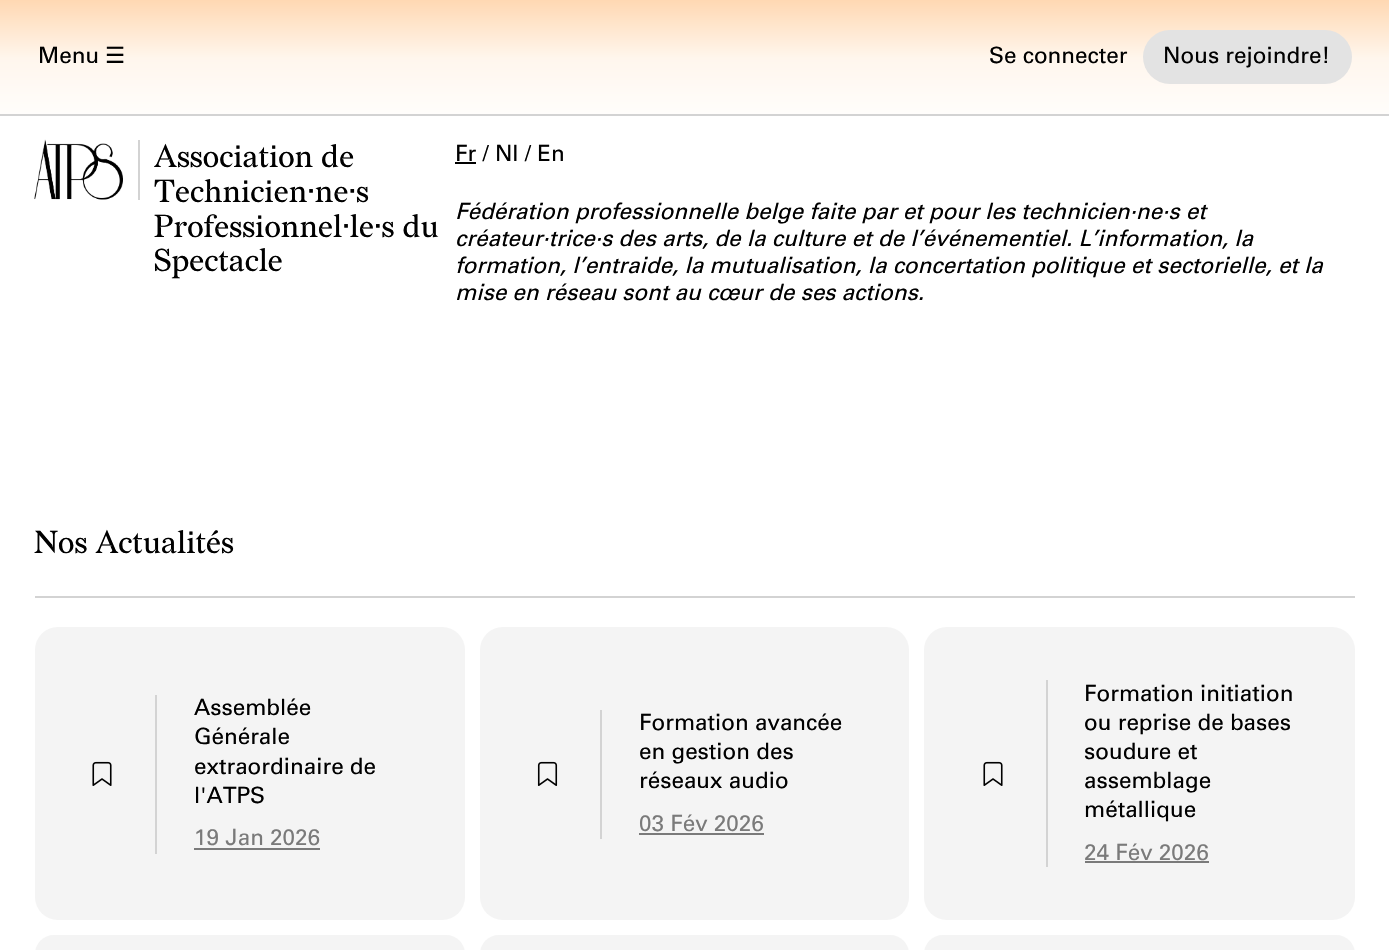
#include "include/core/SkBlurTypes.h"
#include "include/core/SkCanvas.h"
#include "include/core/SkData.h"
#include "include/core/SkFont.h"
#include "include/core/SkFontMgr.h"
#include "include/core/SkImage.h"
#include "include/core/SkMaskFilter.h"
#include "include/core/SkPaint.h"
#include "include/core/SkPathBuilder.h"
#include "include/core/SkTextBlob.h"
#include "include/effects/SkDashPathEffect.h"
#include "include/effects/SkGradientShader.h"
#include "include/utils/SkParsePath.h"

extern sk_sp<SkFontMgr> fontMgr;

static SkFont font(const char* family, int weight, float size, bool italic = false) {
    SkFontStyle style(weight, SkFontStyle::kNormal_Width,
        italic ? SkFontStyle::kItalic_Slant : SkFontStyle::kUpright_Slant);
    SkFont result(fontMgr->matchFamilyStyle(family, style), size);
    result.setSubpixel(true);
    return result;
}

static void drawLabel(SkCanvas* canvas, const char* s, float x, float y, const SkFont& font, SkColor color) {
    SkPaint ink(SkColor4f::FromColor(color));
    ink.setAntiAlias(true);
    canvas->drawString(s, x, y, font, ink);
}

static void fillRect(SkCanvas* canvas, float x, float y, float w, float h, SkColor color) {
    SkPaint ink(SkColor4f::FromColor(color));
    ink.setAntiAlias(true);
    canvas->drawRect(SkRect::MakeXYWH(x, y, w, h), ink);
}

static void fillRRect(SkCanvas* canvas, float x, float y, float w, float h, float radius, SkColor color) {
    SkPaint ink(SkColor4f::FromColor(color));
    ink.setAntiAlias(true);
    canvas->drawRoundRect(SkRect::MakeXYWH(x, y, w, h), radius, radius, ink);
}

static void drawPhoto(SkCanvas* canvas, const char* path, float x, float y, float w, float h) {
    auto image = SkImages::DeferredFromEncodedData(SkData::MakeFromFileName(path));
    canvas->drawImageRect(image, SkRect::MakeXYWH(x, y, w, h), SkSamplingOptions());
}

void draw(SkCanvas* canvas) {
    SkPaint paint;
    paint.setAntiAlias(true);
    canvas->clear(0xFFFFFFFF);
    {
        const SkColor colors[] = {0xFFFFFDFB, 0xFFFFF6ED, 0xFFFFD8B2};
        const float stops[] = {0, 0.49f, 1};
        const SkPoint ends[] = {{695, 114}, {695, 0}};
        paint.setShader(SkGradientShader::MakeLinear(ends, colors, stops, 3, SkTileMode::kClamp));
        paint.setAlpha(255);
    }
    canvas->drawRect(SkRect::MakeXYWH(0, 0, 1389, 114), paint);
    fillRect(canvas, 0, 114, 1389, 2, 0xFFD3D3D3);
    SkFont font1 = font("Univers", 400, 22.45f);
    drawLabel(canvas, "Menu", 38, 63, font1, 0xFF000000);
    SkFont font2 = font("DejaVu Sans", 400, 22.45f);
    drawLabel(canvas, "☰", 105, 63, font2, 0xFF000000);
    drawLabel(canvas, "Se connecter", 989, 63, font1, 0xFF000000);
    fillRRect(canvas, 1143, 30, 209, 54, 27, 0xFFE3E3E3);
    drawLabel(canvas, "Nous rejoindre!", 1163, 63, font1, 0xFF000000);
    fillRect(canvas, 138, 140, 2, 60, 0xFFD3D3D3);
    drawPhoto(canvas, "assets/img1.png", 34, 139, 89, 61);
    SkFont font3 = font("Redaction", 400, 31.75f);
    drawLabel(canvas, "Association de", 154, 167, font3, 0xFF000000);
    drawLabel(canvas, "Technicien·ne·s", 154, 202, font3, 0xFF000000);
    drawLabel(canvas, "Professionnel·le·s du", 154, 237, font3, 0xFF000000);
    drawLabel(canvas, "Spectacle", 154, 271, font3, 0xFF000000);
    drawLabel(canvas, "Fr / Nl / En", 455, 161, font1, 0xFF000000);
    fillRect(canvas, 455, 162, 21, 2, 0xFF000000);
    SkFont font4 = font("Univers", 400, 22.45f, true);
    drawLabel(canvas, "Fédération professionnelle belge faite par et pour les technicien·ne·s et", 455, 219, font4, 0xFF000000);
    drawLabel(canvas, "créateur·trice·s des arts, de la culture et de l’événementiel. L’information, la", 455, 246, font4, 0xFF000000);
    drawLabel(canvas, "formation, l’entraide, la mutualisation, la concertation politique et sectorielle, et la", 455, 273, font4, 0xFF000000);
    drawLabel(canvas, "mise en réseau sont au cœur de ses actions.", 455, 300, font4, 0xFF000000);
    drawLabel(canvas, "Nos Actualités", 34, 553, font3, 0xFF000000);
    fillRect(canvas, 35, 596, 1320, 2, 0xFFD3D3D3);
    fillRRect(canvas, 35, 627, 430, 293, 23, 0xFFF4F4F4);
    drawPhoto(canvas, "assets/img2.png", 92, 761, 20, 25);
    fillRect(canvas, 155, 695, 2, 159, 0xFFD3D3D3);
    drawLabel(canvas, "Assemblée", 194, 715, font1, 0xFF000000);
    drawLabel(canvas, "Générale", 194, 744, font1, 0xFF000000);
    drawLabel(canvas, "extraordinaire de", 194, 774, font1, 0xFF000000);
    drawLabel(canvas, "l'ATPS", 194, 803, font1, 0xFF000000);
    drawLabel(canvas, "19 Jan 2026", 194, 845, font1, 0xFF7A7A7A);
    fillRect(canvas, 194, 848, 126, 2, 0xFF7A7A7A);
    fillRRect(canvas, 480, 627, 429, 293, 23, 0xFFF4F4F4);
    drawPhoto(canvas, "assets/img3.png", 537, 761, 21, 25);
    fillRect(canvas, 600, 710, 2, 129, 0xFFD3D3D3);
    drawLabel(canvas, "Formation avancée", 639, 730, font1, 0xFF000000);
    drawLabel(canvas, "en gestion des", 639, 759, font1, 0xFF000000);
    drawLabel(canvas, "réseaux audio", 639, 788, font1, 0xFF000000);
    drawLabel(canvas, "03 Fév 2026", 639, 831, font1, 0xFF7A7A7A);
    fillRect(canvas, 639, 833, 125, 2, 0xFF7A7A7A);
    fillRRect(canvas, 924, 627, 431, 293, 23, 0xFFF4F4F4);
    drawPhoto(canvas, "assets/img2.png", 983, 761, 20, 25);
    fillRect(canvas, 1046, 680, 2, 187, 0xFFD3D3D3);
    drawLabel(canvas, "Formation initiation", 1084, 701, font1, 0xFF000000);
    drawLabel(canvas, "ou reprise de bases", 1084, 730, font1, 0xFF000000);
    drawLabel(canvas, "soudure et", 1084, 759, font1, 0xFF000000);
    drawLabel(canvas, "assemblage", 1084, 788, font1, 0xFF000000);
    drawLabel(canvas, "métallique", 1084, 817, font1, 0xFF000000);
    drawLabel(canvas, "24 Fév 2026", 1084, 860, font1, 0xFF7A7A7A);
    fillRect(canvas, 1085, 861, 124, 2, 0xFF7A7A7A);
    fillRRect(canvas, 35, 935, 430, 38, 23, 0xFFF4F4F4);
    fillRRect(canvas, 480, 935, 429, 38, 23, 0xFFF4F4F4);
    fillRRect(canvas, 924, 935, 431, 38, 23, 0xFFF4F4F4);
}
